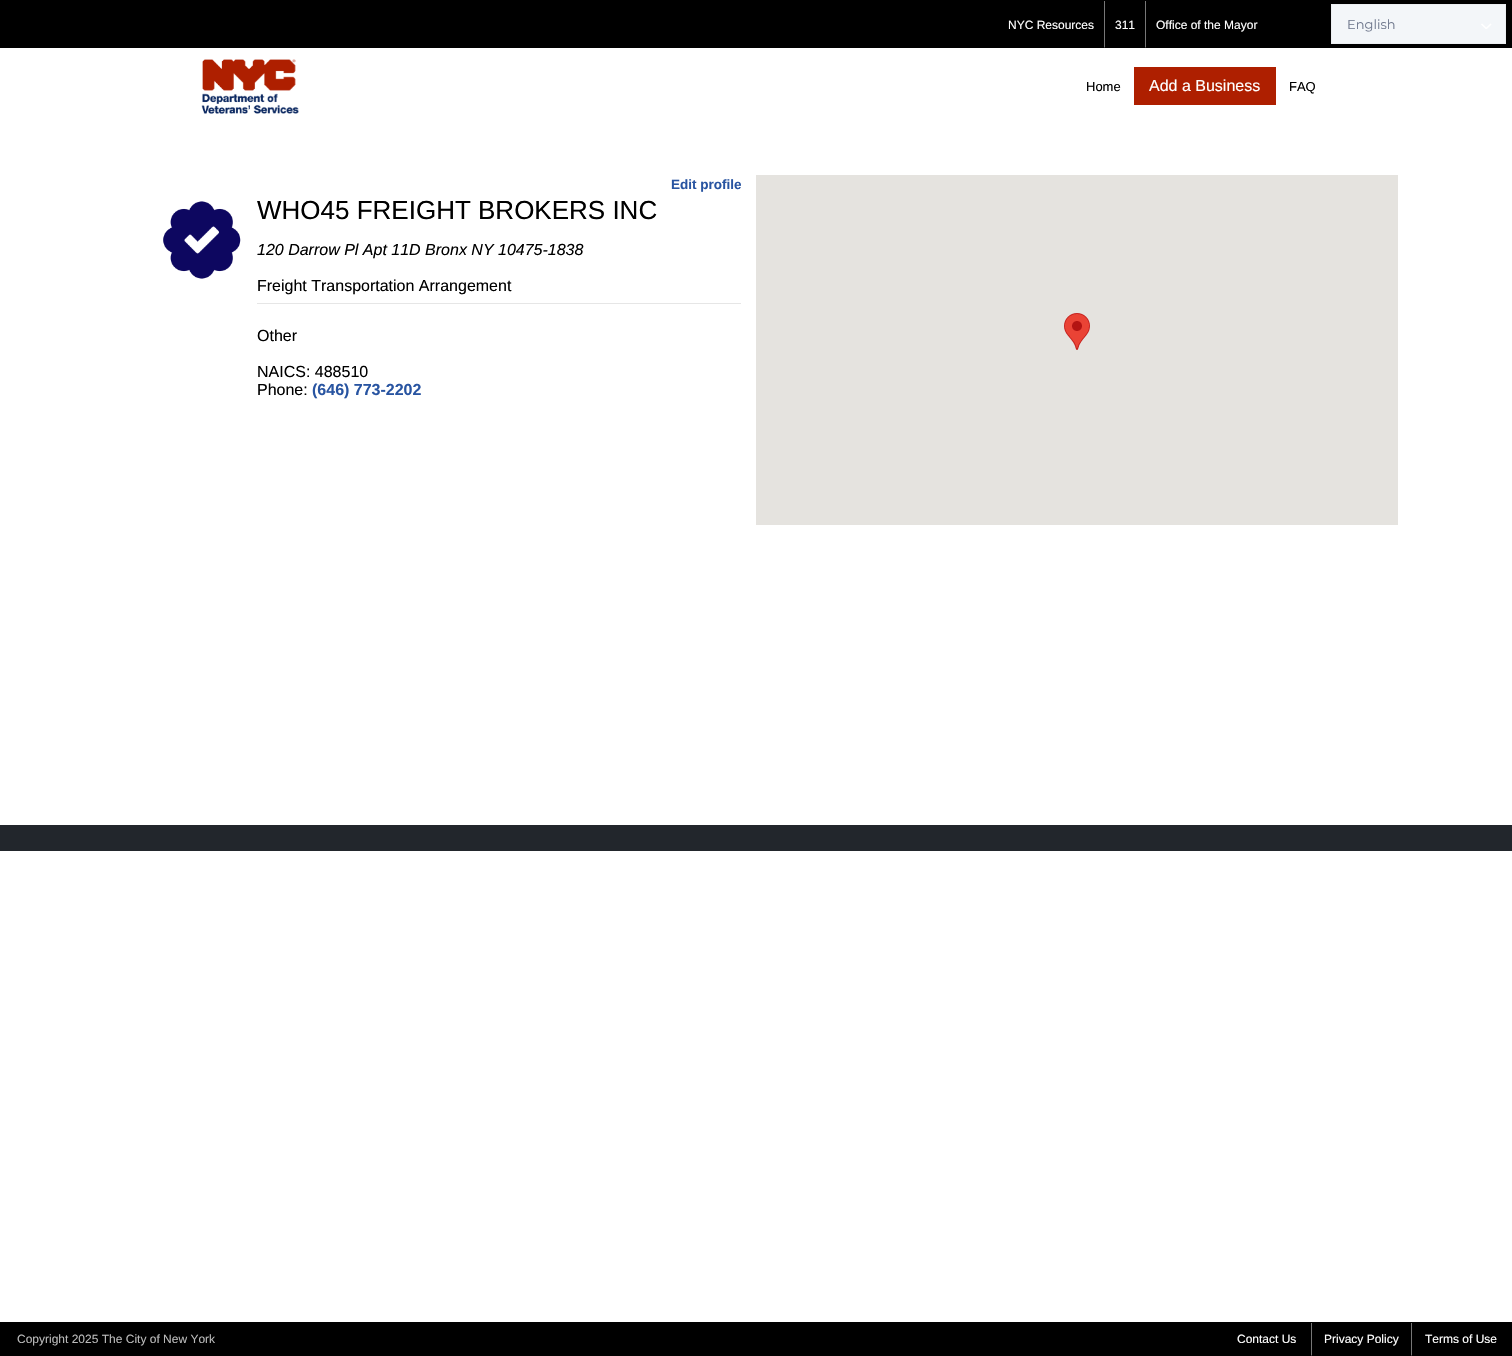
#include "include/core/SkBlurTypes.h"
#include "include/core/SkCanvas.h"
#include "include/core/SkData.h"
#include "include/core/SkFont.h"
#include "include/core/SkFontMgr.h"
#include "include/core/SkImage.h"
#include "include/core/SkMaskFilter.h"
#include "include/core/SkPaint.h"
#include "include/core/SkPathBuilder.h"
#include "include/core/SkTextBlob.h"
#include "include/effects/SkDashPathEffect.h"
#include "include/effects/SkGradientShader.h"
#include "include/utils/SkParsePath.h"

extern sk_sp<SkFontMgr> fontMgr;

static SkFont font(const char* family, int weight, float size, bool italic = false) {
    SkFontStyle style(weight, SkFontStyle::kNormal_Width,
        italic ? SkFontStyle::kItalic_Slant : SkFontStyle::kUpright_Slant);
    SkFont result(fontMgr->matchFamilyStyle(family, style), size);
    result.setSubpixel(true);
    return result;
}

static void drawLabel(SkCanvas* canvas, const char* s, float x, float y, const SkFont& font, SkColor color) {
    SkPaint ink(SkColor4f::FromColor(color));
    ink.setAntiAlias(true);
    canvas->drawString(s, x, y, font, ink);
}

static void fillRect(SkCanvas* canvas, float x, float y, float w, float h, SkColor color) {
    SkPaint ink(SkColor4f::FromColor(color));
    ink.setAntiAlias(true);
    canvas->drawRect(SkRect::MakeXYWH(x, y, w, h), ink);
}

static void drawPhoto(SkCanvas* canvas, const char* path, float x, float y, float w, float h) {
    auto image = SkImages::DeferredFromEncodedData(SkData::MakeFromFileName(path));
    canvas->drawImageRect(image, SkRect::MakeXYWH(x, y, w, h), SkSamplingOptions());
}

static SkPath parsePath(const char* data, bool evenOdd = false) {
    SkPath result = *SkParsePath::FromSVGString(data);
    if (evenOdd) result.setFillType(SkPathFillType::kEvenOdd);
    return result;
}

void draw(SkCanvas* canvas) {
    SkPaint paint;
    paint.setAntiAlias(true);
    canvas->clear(0xFFFFFFFF);
    fillRect(canvas, 0, 0, 1512, 48, 0xFF000000);
    paint.setColor(0xFF777777);
    canvas->drawPath(parsePath("M1105 1V48L1104 47V1Z"), paint);
    paint.setColor(0x1A000000);
    canvas->drawPath(parsePath("M1105 48H865V47H1104Z"), paint);
    SkFont font1 = font("Liberation Sans", 400, 12);
    drawLabel(canvas, "NYC Resources", 1008, 29, font1, 0xFFFFFFFF);
    paint.setColor(0xFF777777);
    canvas->drawPath(parsePath("M1146 1V48L1145 47V1Z"), paint);
    paint.setColor(0x1A000000);
    canvas->drawPath(parsePath("M1146 48H1105V47H1145Z"), paint);
    drawLabel(canvas, "311", 1115, 29, font1, 0xFFFFFFFF);
    drawLabel(canvas, "Office of the Mayor", 1156, 29, font1, 0xFFFFFFFF);
    paint.setColor(0xFFF3F6F9);
    canvas->drawRect(SkRect::MakeXYWH(1331.5f, 4.5f, 174, 39), paint);
    paint.setStroke(true);
    paint.setStrokeWidth(1);
    paint.setColor(0xFFEBEEF1);
    canvas->drawRect(SkRect::MakeXYWH(1331.5f, 4.5f, 174, 39), paint);
    SkFont font2 = font("Montserrat", 400, 13);
    drawLabel(canvas, "English", 1347, 29, font2, 0xFF717A8F);
    drawPhoto(canvas, "assets/img1.png", 1481, 23, 11, 6);
    drawPhoto(canvas, "assets/img2.png", 201, 59, 98, 55);
    SkFont font3 = font("Liberation Sans", 400, 13);
    drawLabel(canvas, "Home", 1086, 91, font3, 0xFF000000);
    fillRect(canvas, 1134, 67, 142, 38, 0xFFAE1F00);
    SkFont font4 = font("Liberation Sans", 400, 16);
    drawLabel(canvas, "Add a Business", 1149, 91, font4, 0xFFFFFFFF);
    drawLabel(canvas, "FAQ", 1289, 91, font3, 0xFF000000);
    drawPhoto(canvas, "assets/img3.png", 163, 201, 78, 78);
    SkFont font5 = font("Liberation Sans", 700, 13.5f);
    drawLabel(canvas, "Edit profile", 671, 189, font5, 0xFF2854A1);
    SkFont font6 = font("Liberation Sans", 400, 26);
    drawLabel(canvas, "WHO45 FREIGHT BROKERS INC", 257, 219, font6, 0xFF000000);
    SkFont font7 = font("Liberation Sans", 400, 16, true);
    drawLabel(canvas, "120 Darrow Pl Apt 11D Bronx NY 10475-1838", 257, 255, font7, 0xFF000000);
    drawLabel(canvas, "Freight Transportation Arrangement", 257, 291, font4, 0xFF000000);
    fillRect(canvas, 257, 303, 484, 1, 0xFFE6E6E6);
    drawLabel(canvas, "Other", 257, 341, font4, 0xFF000000);
    drawLabel(canvas, "NAICS: 488510", 257, 377, font4, 0xFF000000);
    drawLabel(canvas, "Phone:", 257, 395, font4, 0xFF000000);
    SkFont font8 = font("Liberation Sans", 700, 16);
    drawLabel(canvas, "(646) 773-2202", 312, 395, font8, 0xFF2854A1);
    fillRect(canvas, 756, 175, 642, 350, 0xFFE5E3DF);
    drawPhoto(canvas, "assets/img4.png", 1064, 313, 26, 37);
    fillRect(canvas, 0, 825, 1512, 26, 0xFF22262C);
    fillRect(canvas, 0, 1322, 1512, 34, 0xFF000000);
    drawLabel(canvas, "Copyright 2025 The City of New York", 17, 1343, font1, 0xFFBBBBBB);
    paint.setStroke(false);
    paint.setColor(0xFF777777);
    canvas->drawPath(parsePath("M1312 1323V1356L1311 1355V1323Z"), paint);
    paint.setColor(0x1A000000);
    canvas->drawPath(parsePath("M1312 1356H1222V1355H1311Z"), paint);
    drawLabel(canvas, "Contact Us", 1237, 1343, font1, 0xFFFFFFFF);
    paint.setColor(0xFF777777);
    canvas->drawPath(parsePath("M1412 1323V1356L1411 1355V1323Z"), paint);
    paint.setColor(0x1A000000);
    canvas->drawPath(parsePath("M1412 1356H1312V1355H1411Z"), paint);
    drawLabel(canvas, "Privacy Policy", 1324, 1343, font1, 0xFFFFFFFF);
    drawLabel(canvas, "Terms of Use", 1425, 1343, font1, 0xFFFFFFFF);
}
